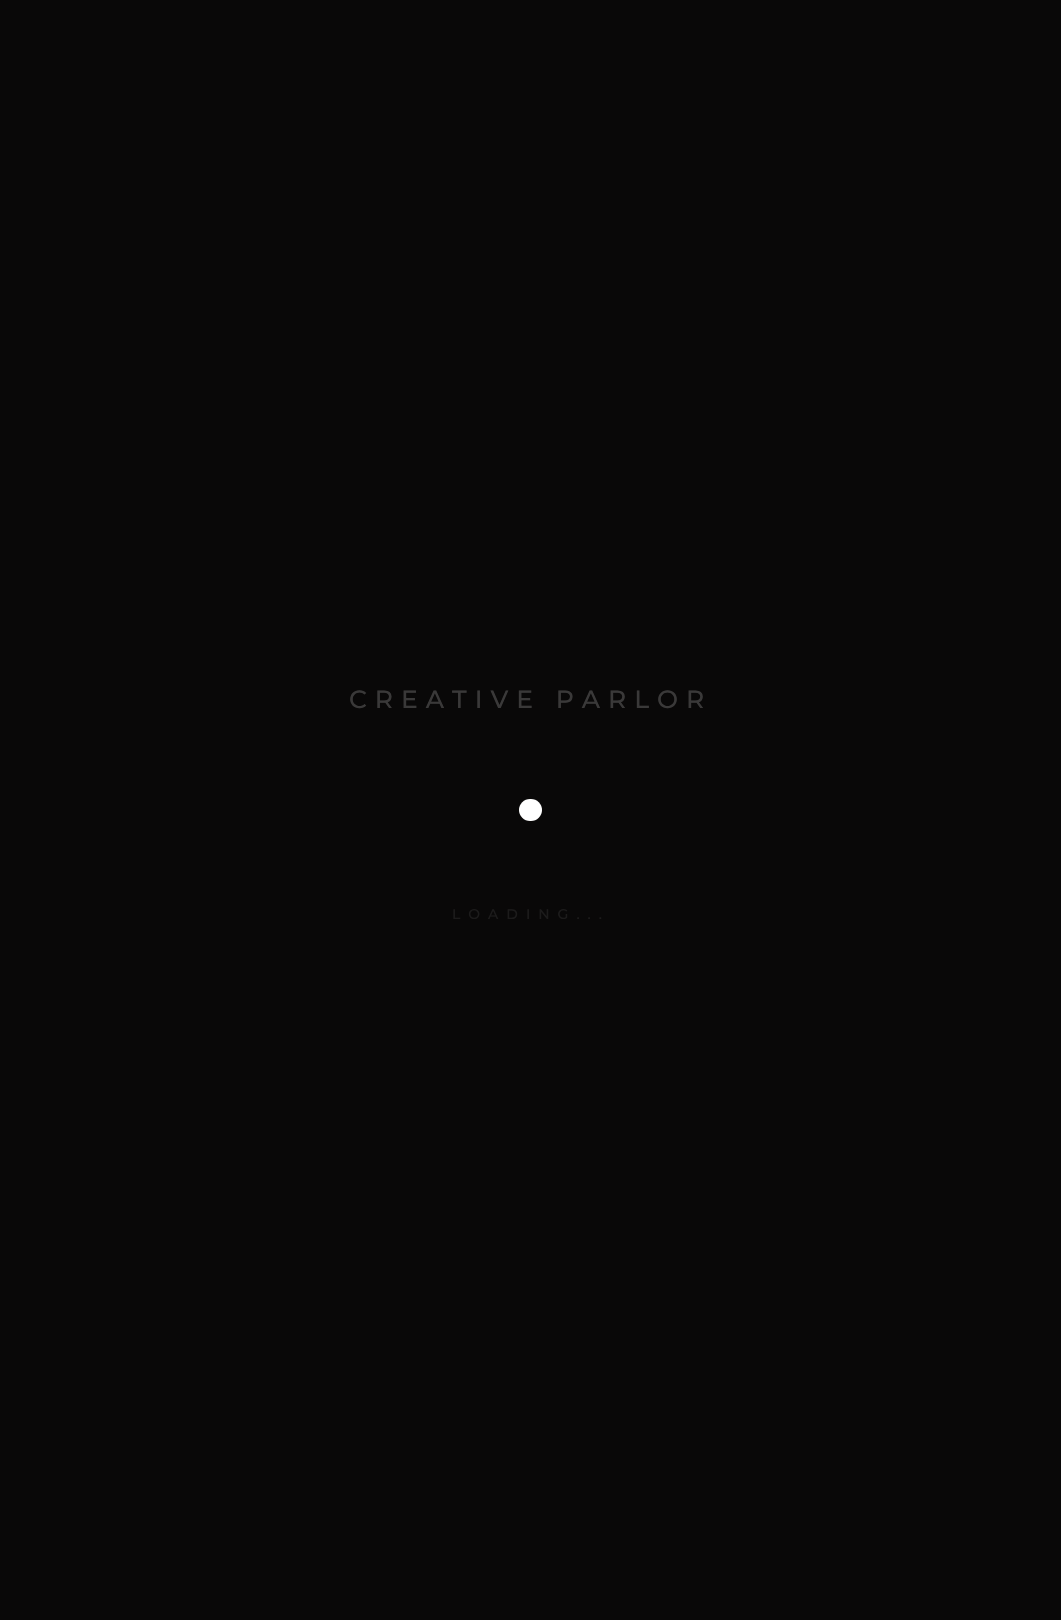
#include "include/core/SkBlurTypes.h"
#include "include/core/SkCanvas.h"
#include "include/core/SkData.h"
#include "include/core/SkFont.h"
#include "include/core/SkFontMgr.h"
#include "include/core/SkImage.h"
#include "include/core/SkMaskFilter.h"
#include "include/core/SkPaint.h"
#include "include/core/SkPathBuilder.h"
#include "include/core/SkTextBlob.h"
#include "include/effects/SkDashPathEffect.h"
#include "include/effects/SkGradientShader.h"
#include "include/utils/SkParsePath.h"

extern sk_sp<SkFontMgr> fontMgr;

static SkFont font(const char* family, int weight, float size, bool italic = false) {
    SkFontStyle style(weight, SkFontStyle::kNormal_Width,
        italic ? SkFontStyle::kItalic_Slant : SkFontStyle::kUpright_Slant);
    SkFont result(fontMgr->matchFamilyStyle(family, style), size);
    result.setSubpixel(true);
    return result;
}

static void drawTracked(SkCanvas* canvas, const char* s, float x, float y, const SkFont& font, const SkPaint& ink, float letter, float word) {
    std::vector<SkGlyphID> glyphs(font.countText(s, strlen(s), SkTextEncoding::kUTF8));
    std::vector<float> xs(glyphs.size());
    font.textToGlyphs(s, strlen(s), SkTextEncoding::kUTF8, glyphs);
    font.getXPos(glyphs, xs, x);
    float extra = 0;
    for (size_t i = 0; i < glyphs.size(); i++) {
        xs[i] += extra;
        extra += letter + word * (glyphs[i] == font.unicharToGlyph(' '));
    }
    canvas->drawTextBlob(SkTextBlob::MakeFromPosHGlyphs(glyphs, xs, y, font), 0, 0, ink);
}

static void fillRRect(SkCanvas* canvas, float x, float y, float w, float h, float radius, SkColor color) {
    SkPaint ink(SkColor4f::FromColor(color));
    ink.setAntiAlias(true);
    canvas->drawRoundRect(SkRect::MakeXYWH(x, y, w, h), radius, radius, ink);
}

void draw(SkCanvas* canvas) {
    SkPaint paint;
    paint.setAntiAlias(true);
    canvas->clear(0xFF090808);
    SkFont font1 = font("Montserrat", 500, 25);
    paint.setColor(0xFF3A3939);
    drawTracked(canvas, "CREATIVE PARLOR", 349, 708, font1, paint, 8, 0);
    SkFont font2 = font("Montserrat", 500, 14);
    paint.setColor(0xFF1C1B1B);
    drawTracked(canvas, "LOADING...", 452, 919, font2, paint, 8, 0);
    fillRRect(canvas, 519, 799, 23, 22, 11, 0xFFFFFFFF);
}
